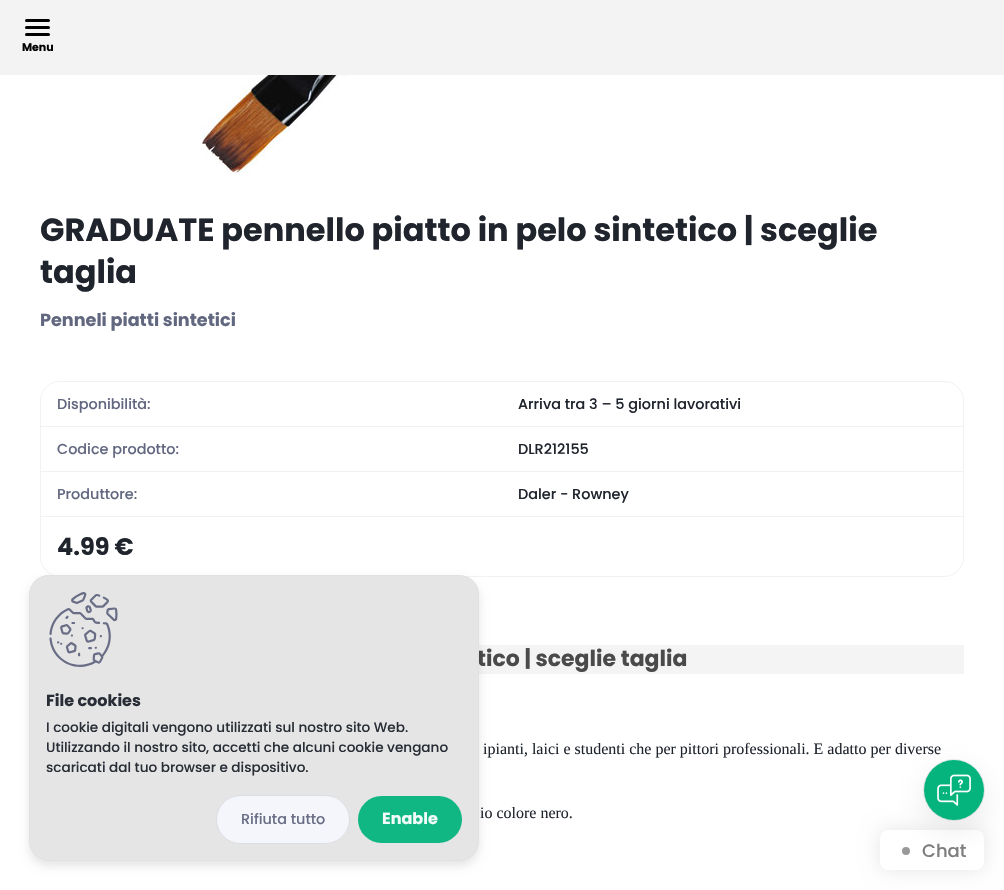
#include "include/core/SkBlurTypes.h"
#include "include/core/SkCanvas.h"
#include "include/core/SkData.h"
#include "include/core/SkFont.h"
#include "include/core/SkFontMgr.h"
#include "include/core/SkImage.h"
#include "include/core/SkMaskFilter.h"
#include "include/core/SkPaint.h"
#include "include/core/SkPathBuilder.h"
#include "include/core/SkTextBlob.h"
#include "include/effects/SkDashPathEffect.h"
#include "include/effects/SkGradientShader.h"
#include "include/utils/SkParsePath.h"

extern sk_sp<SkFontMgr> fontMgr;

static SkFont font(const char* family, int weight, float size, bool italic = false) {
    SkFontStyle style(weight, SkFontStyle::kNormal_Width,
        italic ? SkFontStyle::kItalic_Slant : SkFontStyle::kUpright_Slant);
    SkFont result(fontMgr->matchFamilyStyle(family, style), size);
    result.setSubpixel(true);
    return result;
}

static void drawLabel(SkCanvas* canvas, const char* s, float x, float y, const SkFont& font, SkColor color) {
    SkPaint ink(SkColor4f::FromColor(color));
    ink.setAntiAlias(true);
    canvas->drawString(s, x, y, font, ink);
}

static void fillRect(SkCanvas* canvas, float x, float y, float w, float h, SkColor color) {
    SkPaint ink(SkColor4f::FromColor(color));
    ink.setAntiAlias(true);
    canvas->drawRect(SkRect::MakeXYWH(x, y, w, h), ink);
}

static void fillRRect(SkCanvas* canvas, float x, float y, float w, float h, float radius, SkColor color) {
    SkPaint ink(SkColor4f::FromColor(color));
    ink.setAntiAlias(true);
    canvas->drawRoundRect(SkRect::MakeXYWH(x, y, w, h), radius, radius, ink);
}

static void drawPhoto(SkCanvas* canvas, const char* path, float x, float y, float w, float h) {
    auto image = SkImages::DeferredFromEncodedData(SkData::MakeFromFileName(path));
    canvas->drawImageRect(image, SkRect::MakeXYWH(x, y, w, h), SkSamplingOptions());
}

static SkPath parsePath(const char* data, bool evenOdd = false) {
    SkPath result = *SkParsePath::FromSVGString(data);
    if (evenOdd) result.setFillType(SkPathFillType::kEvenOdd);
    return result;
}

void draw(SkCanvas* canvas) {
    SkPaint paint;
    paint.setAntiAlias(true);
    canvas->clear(0xFFFFFFFF);
    fillRect(canvas, 0, 0, 1004, 75, 0xFFF3F3F3);
    fillRRect(canvas, 25, 19, 25, 3, 1.5f, 0xFF000000);
    fillRRect(canvas, 25, 26, 25, 3, 1.5f, 0xFF000000);
    fillRRect(canvas, 25, 33, 25, 3, 1.5f, 0xFF000000);
    SkFont font1 = font("Poppins", 700, 11);
    drawLabel(canvas, "Menu", 22, 51, font1, 0xFF000000);
    drawPhoto(canvas, "assets/img1.png", 202, 75, 208, 98);
    SkFont font2 = font("Poppins", 700, 32);
    drawLabel(canvas, "GRADUATE pennello piatto in pelo sintetico | sceglie", 40, 241, font2, 0xFF1F242D);
    drawLabel(canvas, "taglia", 40, 283, font2, 0xFF1F242D);
    SkFont font3 = font("Poppins", 700, 17.6f);
    drawLabel(canvas, "Penneli piatti sintetici", 40, 326, font3, 0xFF626780);
    paint.setStroke(true);
    paint.setStrokeWidth(1);
    paint.setColor(0xFFF2F2F2);
    canvas->drawRoundRect(SkRect::MakeXYWH(40.5f, 381.5f, 923, 195), 19.5f, 19.5f, paint);
    fillRect(canvas, 41, 426, 922, 1, 0xFFF2F2F2);
    SkFont font4 = font("Poppins", 500, 14.4f);
    drawLabel(canvas, "Disponibilità:", 57, 409, font4, 0xFF626780);
    drawLabel(canvas, "Arriva tra 3 – 5 giorni lavorativi", 518, 409, font4, 0xFF1F242D);
    fillRect(canvas, 41, 471, 922, 1, 0xFFF2F2F2);
    drawLabel(canvas, "Codice prodotto:", 57, 454, font4, 0xFF626780);
    drawLabel(canvas, "DLR212155", 518, 454, font4, 0xFF1F242D);
    fillRect(canvas, 41, 516, 922, 1, 0xFFF2F2F2);
    drawLabel(canvas, "Produttore:", 57, 499, font4, 0xFF626780);
    drawLabel(canvas, "Daler - Rowney", 518, 499, font4, 0xFF1F242D);
    SkFont font5 = font("Poppins", 700, 24);
    drawLabel(canvas, "4.99 €", 57, 555, font5, 0xFF1F242D);
    fillRect(canvas, 40, 645, 924, 29, 0xFFF4F4F4);
    SkFont font6 = font("Poppins", 700, 22);
    drawLabel(canvas, "tico | sceglie taglia", 477, 666, font6, 0xFF4A4A4A);
    SkFont font7 = font("Liberation Serif", 400, 16);
    drawLabel(canvas, "ipianti, laici e studenti che per pittori professionali. E adatto per diverse", 483, 754, font7, 0xFF1F242D);
    drawLabel(canvas, "io colore nero.", 480, 818, font7, 0xFF1F242D);
    paint.setStroke(false);
    paint.setColor(0x1A000000);
    paint.setMaskFilter(SkMaskFilter::MakeBlur(kNormal_SkBlurStyle, 10));
    canvas->drawRoundRect(SkRect::MakeXYWH(880, 830, 104, 40), 8, 8, paint);
    paint.setMaskFilter(nullptr);
    fillRRect(canvas, 880, 830, 104, 40, 8, 0xFFFFFFFF);
    paint.setColor(0xFF999999);
    canvas->drawCircle(906, 851, 6, paint);
    paint.setStroke(true);
    paint.setStrokeWidth(4);
    paint.setColor(0xFFFFFFFF);
    canvas->drawCircle(906, 851, 6, paint);
    SkFont font8 = font("Poppins", 500, 18);
    drawLabel(canvas, "Chat", 922, 857, font8, 0xFF7D7D7D);
    canvas->save();
    canvas->clipPath(parsePath("M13 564H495V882H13ZM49 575H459C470 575 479 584 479 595V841C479 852 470 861 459 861H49C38 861 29 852 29 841V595C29 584 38 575 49 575Z", true), true);
    paint.setStroke(false);
    paint.setColor(0x1A000000);
    paint.setMaskFilter(SkMaskFilter::MakeBlur(kNormal_SkBlurStyle, 5));
    canvas->drawRoundRect(SkRect::MakeXYWH(29, 580, 450, 286), 20, 20, paint);
    paint.setMaskFilter(nullptr);
    canvas->restore();
    fillRRect(canvas, 29, 575, 450, 286, 20, 0xF2E4E4E4);
    paint.setStroke(true);
    paint.setStrokeWidth(1);
    paint.setColor(0xF2E0E0E0);
    canvas->drawRoundRect(SkRect::MakeXYWH(29.5f, 575.5f, 449, 285), 19.5f, 19.5f, paint);
    drawPhoto(canvas, "assets/img2.png", 49, 592, 69, 75);
    SkFont font9 = font("Poppins", 700, 16);
    drawLabel(canvas, "File cookies", 46, 706, font9, 0xFF292E36);
    SkFont font10 = font("Poppins", 500, 13.6f);
    drawLabel(canvas, "I cookie digitali vengono utilizzati sul nostro sito Web.", 46, 732, font10, 0xFF292E36);
    drawLabel(canvas, "Utilizzando il nostro sito, accetti che alcuni cookie vengano", 46, 752, font10, 0xFF292E36);
    drawLabel(canvas, "scaricati dal tuo browser e dispositivo.", 46, 772, font10, 0xFF292E36);
    fillRRect(canvas, 216, 795, 134, 49, 24.5f, 0xF2F6F7FC);
    paint.setColor(0x1A000000);
    canvas->drawRoundRect(SkRect::MakeXYWH(216.5f, 795.5f, 133, 48), 24, 24, paint);
    drawLabel(canvas, "Rifiuta tutto", 241, 824, font4, 0xFF696E86);
    fillRRect(canvas, 358, 796, 104, 47, 23.5f, 0xF205B47C);
    drawLabel(canvas, "Enable", 382, 824, font9, 0xFFF3FBF9);
    paint.setColor(0x33969696);
    canvas->drawCircle(954, 790, 30.5f, paint);
    paint.setStroke(false);
    paint.setMaskFilter(SkMaskFilter::MakeBlur(kNormal_SkBlurStyle, 15));
    canvas->drawRoundRect(SkRect::MakeXYWH(924, 770, 60, 60), 30, 30, paint);
    paint.setMaskFilter(nullptr);
    paint.setColor(0xFF05B47C);
    canvas->drawCircle(954, 790, 30, paint);
    drawPhoto(canvas, "assets/img3.png", 937, 774, 34, 32);
}
